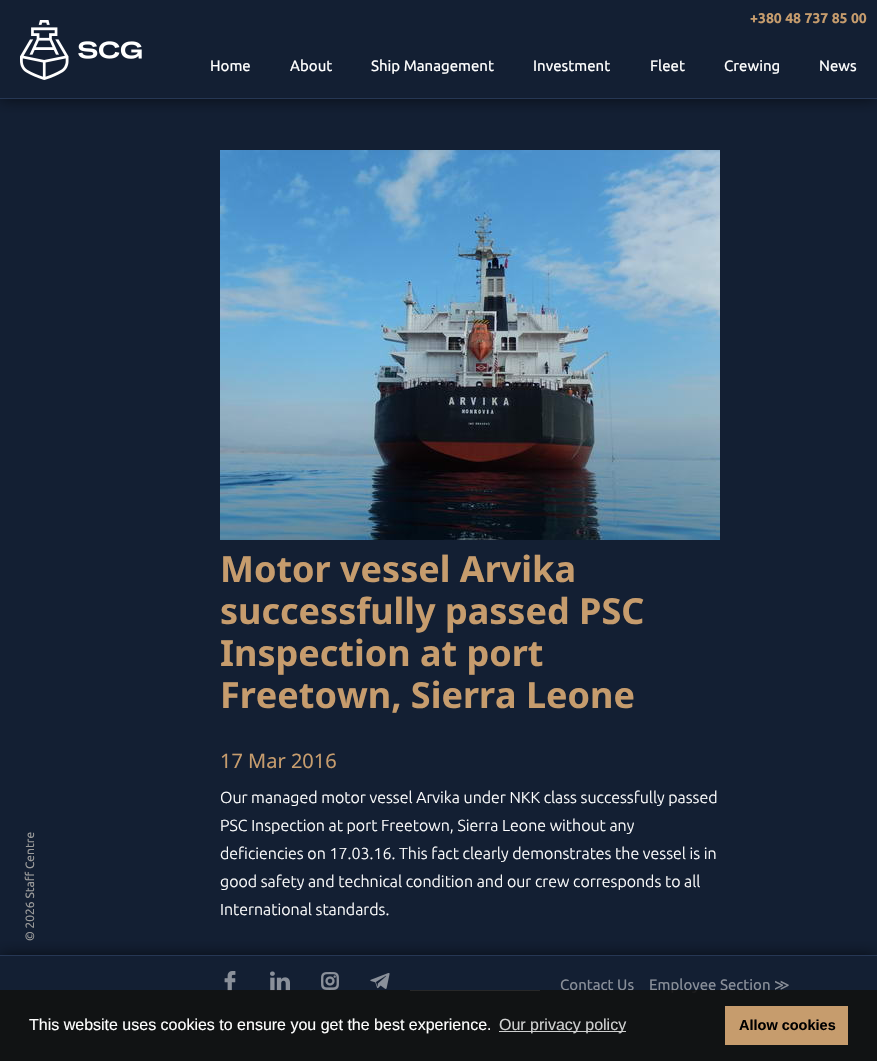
#include "include/core/SkBlurTypes.h"
#include "include/core/SkCanvas.h"
#include "include/core/SkData.h"
#include "include/core/SkFont.h"
#include "include/core/SkFontMgr.h"
#include "include/core/SkImage.h"
#include "include/core/SkMaskFilter.h"
#include "include/core/SkPaint.h"
#include "include/core/SkPathBuilder.h"
#include "include/core/SkTextBlob.h"
#include "include/effects/SkDashPathEffect.h"
#include "include/effects/SkGradientShader.h"
#include "include/utils/SkParsePath.h"

extern sk_sp<SkFontMgr> fontMgr;

static SkFont font(const char* family, int weight, float size, bool italic = false) {
    SkFontStyle style(weight, SkFontStyle::kNormal_Width,
        italic ? SkFontStyle::kItalic_Slant : SkFontStyle::kUpright_Slant);
    SkFont result(fontMgr->matchFamilyStyle(family, style), size);
    result.setSubpixel(true);
    return result;
}

static void drawLabel(SkCanvas* canvas, const char* s, float x, float y, const SkFont& font, SkColor color) {
    SkPaint ink(SkColor4f::FromColor(color));
    ink.setAntiAlias(true);
    canvas->drawString(s, x, y, font, ink);
}

static void fillRect(SkCanvas* canvas, float x, float y, float w, float h, SkColor color) {
    SkPaint ink(SkColor4f::FromColor(color));
    ink.setAntiAlias(true);
    canvas->drawRect(SkRect::MakeXYWH(x, y, w, h), ink);
}

static void drawPhoto(SkCanvas* canvas, const char* path, float x, float y, float w, float h) {
    auto image = SkImages::DeferredFromEncodedData(SkData::MakeFromFileName(path));
    canvas->drawImageRect(image, SkRect::MakeXYWH(x, y, w, h), SkSamplingOptions());
}

void draw(SkCanvas* canvas) {
    SkPaint paint;
    paint.setAntiAlias(true);
    canvas->clear(0xFF131F33);
    canvas->save();
    canvas->clipRect(SkRect::MakeXYWH(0, 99, 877, 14));
    paint.setColor(0x99000000);
    paint.setMaskFilter(SkMaskFilter::MakeBlur(kNormal_SkBlurStyle, 7.5f));
    canvas->drawRect(SkRect::MakeXYWH(0, 0, 877, 99), paint);
    paint.setMaskFilter(nullptr);
    canvas->restore();
    fillRect(canvas, 0, 98, 877, 1, 0xFF263754);
    SkFont font1 = font("Ubuntu", 700, 14);
    drawLabel(canvas, "+380 48 737 85 00", 750, 23, font1, 0xFFC69C6D);
    drawPhoto(canvas, "assets/img1.png", 20, 20, 122, 60);
    SkFont font2 = font("Ubuntu", 400, 15);
    drawLabel(canvas, "Home", 210, 71, font2, 0xFFFFFFFF);
    drawLabel(canvas, "About", 290, 71, font2, 0xFFFFFFFF);
    drawLabel(canvas, "Ship Management", 371, 71, font2, 0xFFFFFFFF);
    drawLabel(canvas, "Investment", 533, 71, font2, 0xFFFFFFFF);
    drawLabel(canvas, "Fleet", 650, 71, font2, 0xFFFFFFFF);
    drawLabel(canvas, "Crewing", 724, 71, font2, 0xFFFFFFFF);
    drawLabel(canvas, "News", 819, 71, font2, 0xFFFFFFFF);
    drawPhoto(canvas, "assets/img2.png", 220, 150, 500, 390);
    SkFont font3 = font("Noto Sans", 700, 36);
    drawLabel(canvas, "Motor vessel Arvika", 220, 582, font3, 0xFFC69C6D);
    drawLabel(canvas, "successfully passed PSC", 220, 624, font3, 0xFFC69C6D);
    drawLabel(canvas, "Inspection at port", 220, 666, font3, 0xFFC69C6D);
    drawLabel(canvas, "Freetown, Sierra Leone", 220, 708, font3, 0xFFC69C6D);
    SkFont font4 = font("Noto Sans", 400, 20);
    drawLabel(canvas, "17 Mar 2016", 220, 768, font4, 0xFFC69C6D);
    SkFont font5 = font("Ubuntu", 300, 16);
    drawLabel(canvas, "Our managed motor vessel Arvika under NKK class successfully passed", 220, 803, font5, 0xFFFFFFFF);
    drawLabel(canvas, "PSC Inspection at port Freetown, Sierra Leone without any", 220, 831, font5, 0xFFFFFFFF);
    drawLabel(canvas, "deficiencies on 17.03.16. This fact clearly demonstrates the vessel is in", 220, 859, font5, 0xFFFFFFFF);
    drawLabel(canvas, "good safety and technical condition and our crew corresponds to all", 220, 887, font5, 0xFFFFFFFF);
    drawLabel(canvas, "International standards.", 220, 915, font5, 0xFFFFFFFF);
    canvas->save();
    canvas->clipRect(SkRect::MakeXYWH(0, 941, 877, 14));
    paint.setMaskFilter(SkMaskFilter::MakeBlur(kNormal_SkBlurStyle, 7.5f));
    canvas->drawRect(SkRect::MakeXYWH(0, 955, 877, 106), paint);
    paint.setMaskFilter(nullptr);
    canvas->restore();
    fillRect(canvas, 0, 955, 877, 1, 0xFF263754);
    SkFont font6 = font("Ubuntu", 400, 12);
    canvas->save();
    canvas->rotate(-90, 34, 941);
    drawLabel(canvas, "© 2026 Staff Centre", 34, 941, font6, 0xFF999999);
    canvas->restore();
    drawPhoto(canvas, "assets/img3.png", 224, 971, 12, 20);
    drawPhoto(canvas, "assets/img4.png", 270, 971, 20, 20);
    drawPhoto(canvas, "assets/img5.png", 321, 972, 18, 18);
    drawPhoto(canvas, "assets/img6.png", 370, 973, 20, 16);
    fillRect(canvas, 410, 990, 130, 1, 0xFFFFFFFF);
    drawLabel(canvas, "Contact Us", 560, 990, font2, 0xFF898F99);
    drawLabel(canvas, "Employee Section", 649, 990, font2, 0xFF898F99);
    SkFont font7 = font("DejaVu Sans", 400, 15);
    drawLabel(canvas, "≫", 774, 990, font7, 0xFF898F99);
    fillRect(canvas, 0, 990, 877, 71, 0xE6111111);
    SkFont font8 = font("Liberation Sans", 400, 16);
    drawLabel(canvas, "This website uses cookies to ensure you get the best experience.", 29, 1030, font8, 0xFFFFFFFF);
    fillRect(canvas, 499, 1031, 127, 1, 0xFFCFD0D0);
    drawLabel(canvas, "Our privacy policy", 499, 1030, font8, 0xFFCFD0D0);
    fillRect(canvas, 725, 1006, 123, 39, 0xFFC69C6D);
    SkFont font9 = font("Liberation Sans", 700, 14.5f);
    drawLabel(canvas, "Allow cookies", 739, 1030, font9, 0xFF000000);
}
